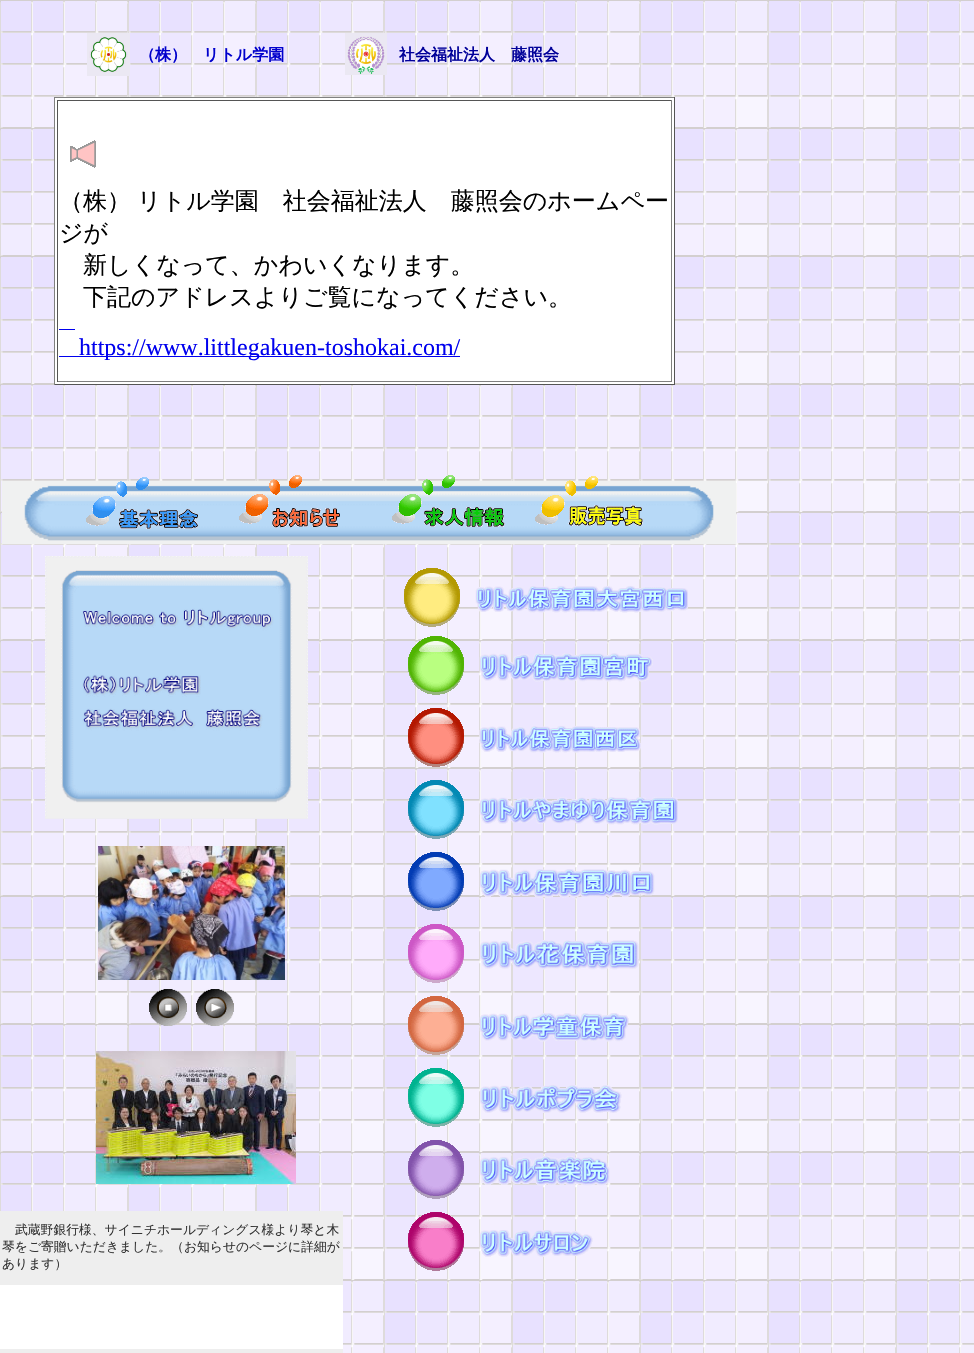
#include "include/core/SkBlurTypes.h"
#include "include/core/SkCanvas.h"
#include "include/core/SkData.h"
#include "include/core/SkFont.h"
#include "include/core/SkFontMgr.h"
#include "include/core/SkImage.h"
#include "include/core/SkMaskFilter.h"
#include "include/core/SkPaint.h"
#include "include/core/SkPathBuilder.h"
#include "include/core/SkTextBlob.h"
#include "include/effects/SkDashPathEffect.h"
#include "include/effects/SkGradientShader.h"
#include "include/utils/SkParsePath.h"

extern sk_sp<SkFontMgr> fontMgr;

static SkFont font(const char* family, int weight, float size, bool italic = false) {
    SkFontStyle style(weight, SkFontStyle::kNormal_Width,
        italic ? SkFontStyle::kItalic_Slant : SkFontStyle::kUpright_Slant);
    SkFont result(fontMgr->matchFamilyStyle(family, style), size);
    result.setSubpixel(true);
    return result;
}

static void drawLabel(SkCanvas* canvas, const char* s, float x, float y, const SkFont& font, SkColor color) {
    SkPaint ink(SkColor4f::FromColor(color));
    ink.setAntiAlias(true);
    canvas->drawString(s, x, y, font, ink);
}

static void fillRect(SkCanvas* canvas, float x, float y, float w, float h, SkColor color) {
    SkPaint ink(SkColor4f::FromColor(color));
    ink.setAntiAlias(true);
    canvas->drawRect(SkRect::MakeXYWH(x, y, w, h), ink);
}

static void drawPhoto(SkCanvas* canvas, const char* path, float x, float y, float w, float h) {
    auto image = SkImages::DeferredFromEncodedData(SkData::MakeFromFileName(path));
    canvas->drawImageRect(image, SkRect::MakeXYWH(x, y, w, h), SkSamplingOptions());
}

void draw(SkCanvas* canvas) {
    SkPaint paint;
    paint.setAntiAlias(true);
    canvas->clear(0xFFFFFFFF);
    drawPhoto(canvas, "assets/img1.png", 0, 0, 974, 1353);
    drawPhoto(canvas, "assets/img2.png", 87, 33, 43, 43);
    SkFont font1 = font("WenQuanYi Zen Hei", 700, 16);
    drawLabel(canvas, "（株）", 139, 60, font1, 0xFF0000CC);
    drawLabel(canvas, "リトル学園", 203, 60, font1, 0xFF0000CC);
    drawPhoto(canvas, "assets/img3.png", 345, 33, 42, 42);
    drawLabel(canvas, "社会福祉法人　藤照会", 399, 60, font1, 0xFF000099);
    fillRect(canvas, 55, 98, 619, 286, 0xFFFFFFFF);
    fillRect(canvas, 54, 97, 621, 1, 0xFF808080);
    fillRect(canvas, 674, 97, 1, 288, 0xFF555555);
    fillRect(canvas, 54, 384, 621, 1, 0xFF555555);
    fillRect(canvas, 54, 97, 1, 288, 0xFF808080);
    fillRect(canvas, 57, 100, 615, 1, 0xFF555555);
    fillRect(canvas, 671, 100, 1, 282, 0xFF808080);
    fillRect(canvas, 57, 381, 615, 1, 0xFF808080);
    fillRect(canvas, 57, 100, 1, 282, 0xFF555555);
    drawPhoto(canvas, "assets/img4.png", 70, 140, 26, 28);
    SkFont font2 = font("WenQuanYi Zen Hei", 500, 24);
    drawLabel(canvas, "（株）", 59, 209, font2, 0xFF000000);
    drawLabel(canvas, "リトル学園　社会福祉法人　藤照会のホームペー", 137, 209, font2, 0xFF000000);
    drawLabel(canvas, "ジが", 59, 241, font2, 0xFF000000);
    drawLabel(canvas, "新しくなって、かわいくなります。", 83, 273, font2, 0xFF000000);
    drawLabel(canvas, "下記のアドレスよりご覧になってください。", 83, 305, font2, 0xFF000000);
    fillRect(canvas, 59, 329, 16, 1, 0xFF0000EE);
    fillRect(canvas, 59, 356, 401, 1, 0xFF0000EE);
    SkFont font3 = font("Liberation Serif", 400, 24);
    drawLabel(canvas, "https://www.littlegakuen-toshokai.com/", 79, 355, font3, 0xFF0000EE);
    drawPhoto(canvas, "assets/img9.png", 2, 481, 734, 63);
    drawPhoto(canvas, "assets/img5.png", 86, 477, 112, 52);
    drawPhoto(canvas, "assets/img6.png", 239, 475, 101, 53);
    drawPhoto(canvas, "assets/img7.png", 392, 475, 113, 52);
    drawPhoto(canvas, "assets/img8.png", 535, 476, 108, 50);
    drawPhoto(canvas, "assets/img10.png", 45, 556, 263, 263);
    drawPhoto(canvas, "assets/img11.png", 404, 568, 56, 59);
    drawPhoto(canvas, "assets/img12.png", 475, 585, 213, 28);
    drawPhoto(canvas, "assets/img13.png", 408, 636, 56, 59);
    drawPhoto(canvas, "assets/img14.png", 479, 653, 174, 29);
    drawPhoto(canvas, "assets/img15.png", 408, 708, 56, 59);
    drawPhoto(canvas, "assets/img16.png", 479, 725, 162, 28);
    drawPhoto(canvas, "assets/img17.png", 408, 780, 56, 59);
    drawPhoto(canvas, "assets/img18.png", 479, 797, 199, 28);
    drawPhoto(canvas, "assets/img19.png", 408, 852, 56, 59);
    drawPhoto(canvas, "assets/img20.png", 479, 869, 176, 29);
    drawPhoto(canvas, "assets/img21.png", 408, 924, 56, 59);
    drawPhoto(canvas, "assets/img22.png", 480, 940, 159, 30);
    drawPhoto(canvas, "assets/img23.png", 408, 996, 56, 59);
    drawPhoto(canvas, "assets/img24.png", 479, 1013, 150, 29);
    drawPhoto(canvas, "assets/img25.png", 408, 1068, 56, 59);
    drawPhoto(canvas, "assets/img26.png", 480, 1084, 142, 29);
    drawPhoto(canvas, "assets/img27.png", 408, 1140, 56, 59);
    drawPhoto(canvas, "assets/img28.png", 479, 1156, 131, 30);
    drawPhoto(canvas, "assets/img29.png", 408, 1212, 56, 59);
    drawPhoto(canvas, "assets/img30.png", 479, 1230, 114, 27);
    drawPhoto(canvas, "assets/img31.png", 98, 846, 187, 134);
    drawPhoto(canvas, "assets/img32.png", 149, 989, 38, 37);
    drawPhoto(canvas, "assets/img33.png", 196, 989, 38, 37);
    drawPhoto(canvas, "assets/img34.png", 96, 1051, 200, 133);
    fillRect(canvas, 0, 1211, 343, 74, 0xFFEEEEEE);
    SkFont font4 = font("WenQuanYi Zen Hei", 500, 12.8f);
    drawLabel(canvas, "武蔵野銀行様、サイニチホールディングス様より琴と木", 15, 1234, font4, 0xFF333333);
    drawLabel(canvas, "琴をご寄贈いただきました。（お知らせのページに詳細が", 2, 1251, font4, 0xFF333333);
    drawLabel(canvas, "あります）", 2, 1268, font4, 0xFF333333);
    fillRect(canvas, 0, 1285, 343, 64, 0xFFFFFFFF);
    fillRect(canvas, 0, 1349, 343, 4, 0xFFEEEEEE);
}
